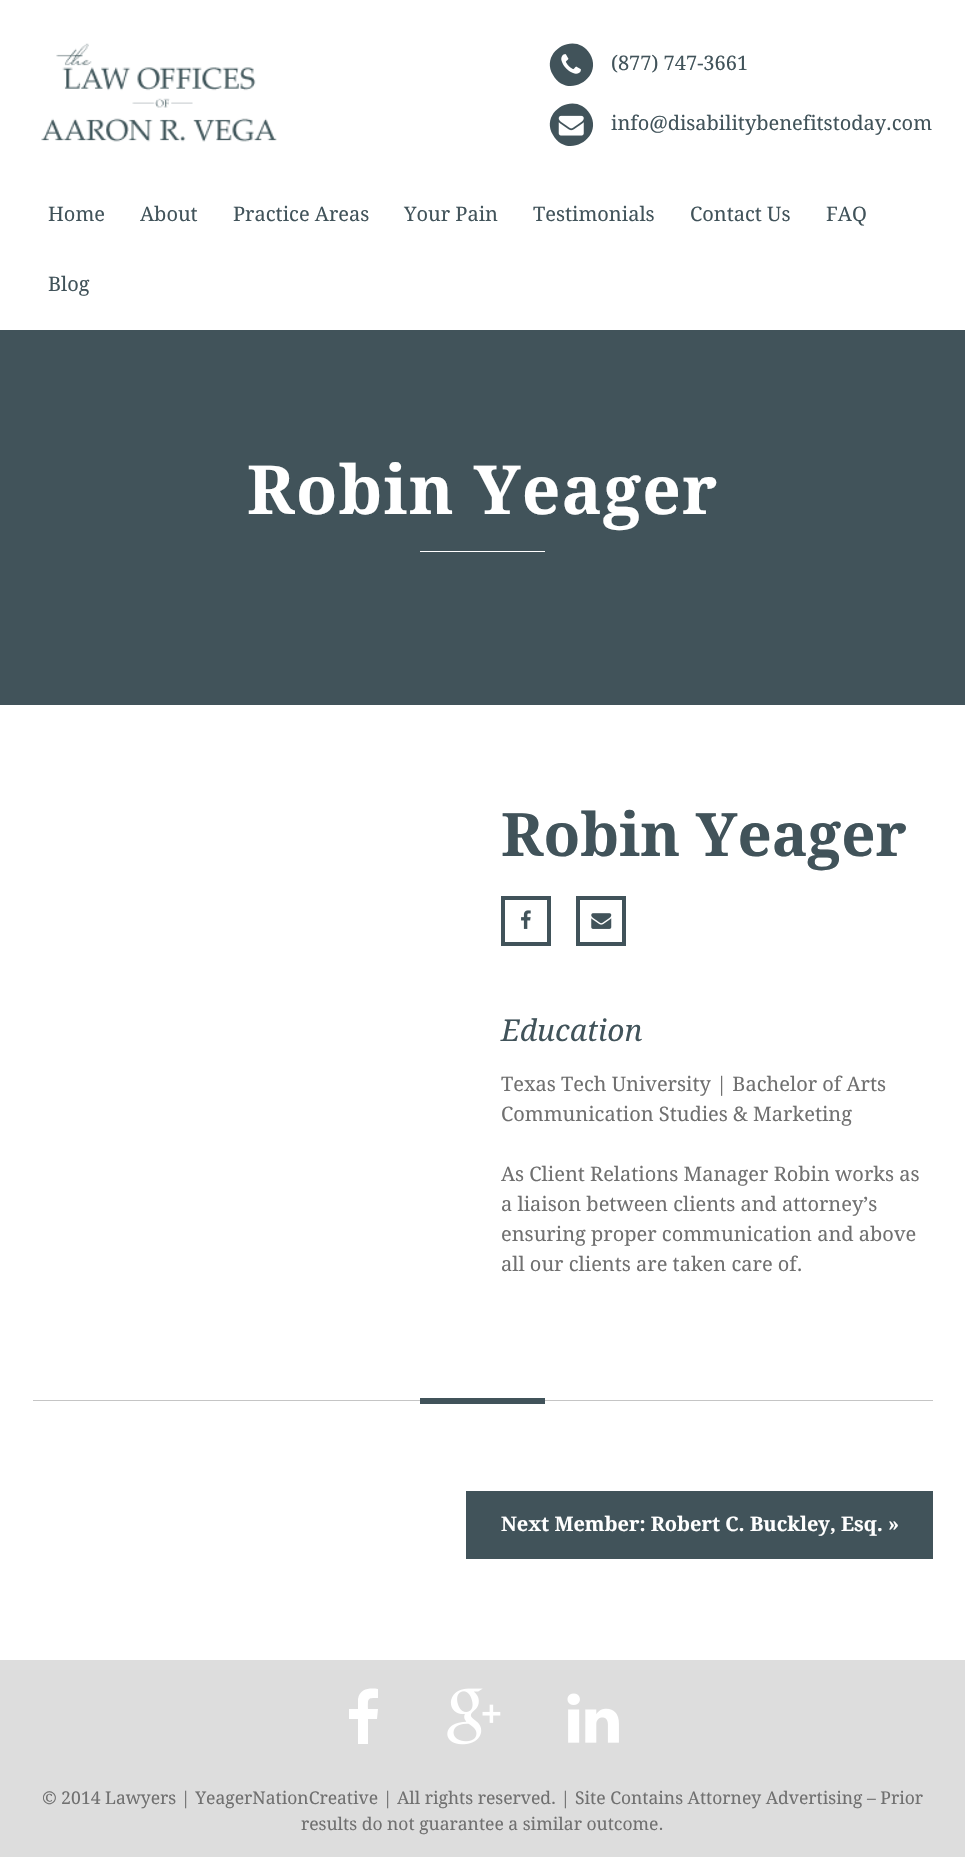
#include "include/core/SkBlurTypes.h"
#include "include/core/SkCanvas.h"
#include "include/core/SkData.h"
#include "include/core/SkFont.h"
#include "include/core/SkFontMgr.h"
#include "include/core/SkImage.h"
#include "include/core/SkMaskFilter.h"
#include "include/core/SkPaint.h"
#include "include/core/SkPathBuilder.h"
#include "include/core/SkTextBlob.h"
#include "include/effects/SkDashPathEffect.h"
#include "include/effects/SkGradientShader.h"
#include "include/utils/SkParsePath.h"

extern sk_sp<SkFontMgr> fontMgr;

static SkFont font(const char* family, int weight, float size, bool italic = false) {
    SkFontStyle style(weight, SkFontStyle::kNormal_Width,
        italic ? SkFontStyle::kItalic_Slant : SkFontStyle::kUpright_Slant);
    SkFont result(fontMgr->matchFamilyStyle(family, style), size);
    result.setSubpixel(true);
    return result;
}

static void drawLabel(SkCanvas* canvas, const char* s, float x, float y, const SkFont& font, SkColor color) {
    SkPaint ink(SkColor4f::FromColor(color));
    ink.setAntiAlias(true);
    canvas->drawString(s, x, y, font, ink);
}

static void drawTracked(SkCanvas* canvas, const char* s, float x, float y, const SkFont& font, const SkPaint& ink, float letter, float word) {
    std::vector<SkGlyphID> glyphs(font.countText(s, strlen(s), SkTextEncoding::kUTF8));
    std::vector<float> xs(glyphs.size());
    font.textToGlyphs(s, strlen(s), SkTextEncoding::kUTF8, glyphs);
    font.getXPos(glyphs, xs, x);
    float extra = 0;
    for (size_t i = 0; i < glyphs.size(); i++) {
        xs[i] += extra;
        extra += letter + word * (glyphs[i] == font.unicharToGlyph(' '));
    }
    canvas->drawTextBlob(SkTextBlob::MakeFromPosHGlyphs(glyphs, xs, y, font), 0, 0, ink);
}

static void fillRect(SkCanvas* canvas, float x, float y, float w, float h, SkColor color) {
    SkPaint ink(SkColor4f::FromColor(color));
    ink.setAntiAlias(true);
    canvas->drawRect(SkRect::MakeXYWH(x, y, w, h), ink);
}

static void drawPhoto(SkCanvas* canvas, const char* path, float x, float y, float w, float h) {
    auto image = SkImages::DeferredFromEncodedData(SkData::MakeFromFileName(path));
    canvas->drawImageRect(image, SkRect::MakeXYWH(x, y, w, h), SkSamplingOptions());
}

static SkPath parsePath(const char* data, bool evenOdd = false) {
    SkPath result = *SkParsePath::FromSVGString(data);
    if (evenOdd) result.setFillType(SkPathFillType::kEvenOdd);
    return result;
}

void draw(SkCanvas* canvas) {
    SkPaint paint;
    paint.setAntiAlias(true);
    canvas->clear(0xFFDDDDDD);
    fillRect(canvas, 0, 0, 965, 1660, 0xFFFFFFFF);
    drawPhoto(canvas, "assets/img1.png", 41, 43, 236, 99);
    paint.setColor(0xFF41535A);
    canvas->drawPath(parsePath("M590 54C604 78 567 100 553 75C539 51 576 30 590 54Z"), paint);
    drawPhoto(canvas, "assets/img2.png", 561, 54, 20, 20);
    SkFont font1 = font("Droid Serif", 400, 20);
    drawLabel(canvas, "(877) 747-3661", 611, 70, font1, 0xFF41535A);
    canvas->drawPath(parsePath("M590 114C604 138 567 160 553 135C539 111 576 90 590 114Z"), paint);
    drawPhoto(canvas, "assets/img3.png", 558, 115, 26, 21);
    drawLabel(canvas, "info@disabilitybenefitstoday.com", 611, 130, font1, 0xFF41535A);
    drawLabel(canvas, "Home", 48, 221, font1, 0xFF41535A);
    drawLabel(canvas, "About", 140, 221, font1, 0xFF41535A);
    drawLabel(canvas, "Practice Areas", 233, 221, font1, 0xFF41535A);
    drawLabel(canvas, "Your Pain", 404, 221, font1, 0xFF41535A);
    drawLabel(canvas, "Testimonials", 533, 221, font1, 0xFF41535A);
    drawLabel(canvas, "Contact Us", 690, 221, font1, 0xFF41535A);
    drawLabel(canvas, "FAQ", 826, 221, font1, 0xFF41535A);
    drawLabel(canvas, "Blog", 48, 291, font1, 0xFF41535A);
    fillRect(canvas, 0, 330, 965, 375, 0xFF41535A);
    SkFont font2 = font("Droid Serif", 700, 67.5f);
    paint.setColor(0xFFFFFFFF);
    drawTracked(canvas, "Robin Yeager", 247, 514, font2, paint, 1.25f, 0);
    fillRect(canvas, 420, 551, 125, 1, 0xFFFFFFFF);
    fillRect(canvas, 33, 1400, 900, 1, 0xFFC5C5C5);
    SkFont font3 = font("Droid Serif", 700, 60);
    drawLabel(canvas, "Robin Yeager", 501, 856, font3, 0xFF41535A);
    paint.setStroke(true);
    paint.setStrokeWidth(4);
    paint.setColor(0xFF41535A);
    canvas->drawRect(SkRect::MakeXYWH(503, 898, 46, 46), paint);
    drawPhoto(canvas, "assets/img4.png", 521, 910, 10, 19);
    canvas->drawRect(SkRect::MakeXYWH(578, 898, 46, 46), paint);
    drawPhoto(canvas, "assets/img5.png", 591, 913, 21, 16);
    SkFont font4 = font("Droid Serif", 400, 30, true);
    drawLabel(canvas, "Education", 501, 1041, font4, 0xFF41535A);
    drawLabel(canvas, "Texas Tech University | Bachelor of Arts", 501, 1091, font1, 0xFF707070);
    drawLabel(canvas, "Communication Studies & Marketing", 501, 1121, font1, 0xFF707070);
    drawLabel(canvas, "As Client Relations Manager Robin works as", 501, 1181, font1, 0xFF707070);
    drawLabel(canvas, "a liaison between clients and attorney’s", 501, 1211, font1, 0xFF707070);
    drawLabel(canvas, "ensuring proper communication and above", 501, 1241, font1, 0xFF707070);
    drawLabel(canvas, "all our clients are taken care of.", 501, 1271, font1, 0xFF707070);
    fillRect(canvas, 420, 1398, 125, 6, 0xFF41535A);
    fillRect(canvas, 466, 1491, 467, 68, 0xFF41535A);
    SkFont font5 = font("Droid Serif", 700, 20);
    drawLabel(canvas, "Next Member: Robert C. Buckley, Esq. »", 501, 1531, font5, 0xFFFFFFFF);
    paint.setStroke(false);
    paint.setColor(0xFFFFFFFF);
    canvas->drawPath(parsePath("M378 1689V1698C367 1698 368 1698 368 1709H378L377 1719H368V1744H358V1719H349V1709H358V1699C360 1688 370 1688 378 1689Z"), paint);
    drawPhoto(canvas, "assets/img6.png", 447, 1688, 54, 57);
    drawPhoto(canvas, "assets/img7.png", 567, 1693, 52, 50);
    SkFont font6 = font("Droid Serif", 400, 17.5f);
    drawLabel(canvas, "© 2014 Lawyers | YeagerNationCreative | All rights reserved. | Site Contains Attorney Advertising – Prior", 42, 1804, font6, 0xFF707070);
    drawLabel(canvas, "results do not guarantee a similar outcome.", 301, 1830, font6, 0xFF707070);
}
